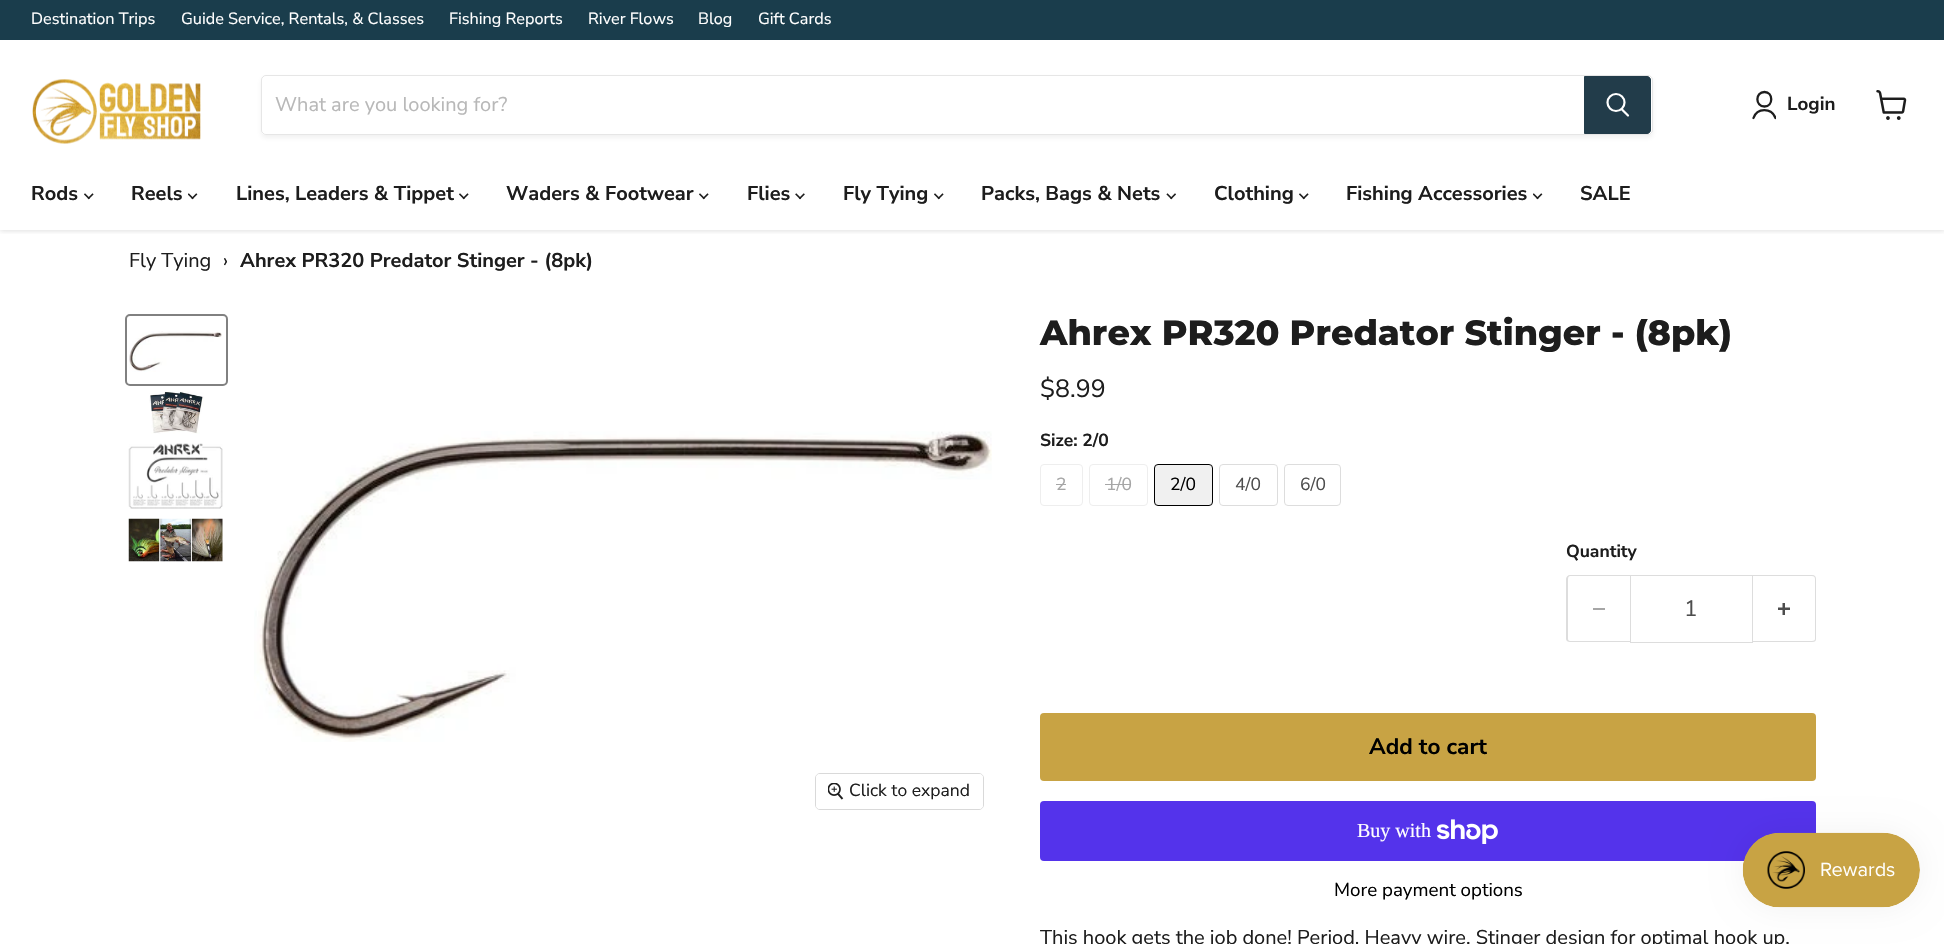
#include "include/core/SkBlurTypes.h"
#include "include/core/SkCanvas.h"
#include "include/core/SkData.h"
#include "include/core/SkFont.h"
#include "include/core/SkFontMgr.h"
#include "include/core/SkImage.h"
#include "include/core/SkMaskFilter.h"
#include "include/core/SkPaint.h"
#include "include/core/SkPathBuilder.h"
#include "include/core/SkTextBlob.h"
#include "include/effects/SkDashPathEffect.h"
#include "include/effects/SkGradientShader.h"
#include "include/utils/SkParsePath.h"

extern sk_sp<SkFontMgr> fontMgr;

static SkFont font(const char* family, int weight, float size, bool italic = false) {
    SkFontStyle style(weight, SkFontStyle::kNormal_Width,
        italic ? SkFontStyle::kItalic_Slant : SkFontStyle::kUpright_Slant);
    SkFont result(fontMgr->matchFamilyStyle(family, style), size);
    result.setSubpixel(true);
    return result;
}

static void drawLabel(SkCanvas* canvas, const char* s, float x, float y, const SkFont& font, SkColor color) {
    SkPaint ink(SkColor4f::FromColor(color));
    ink.setAntiAlias(true);
    canvas->drawString(s, x, y, font, ink);
}

static void fillRect(SkCanvas* canvas, float x, float y, float w, float h, SkColor color) {
    SkPaint ink(SkColor4f::FromColor(color));
    ink.setAntiAlias(true);
    canvas->drawRect(SkRect::MakeXYWH(x, y, w, h), ink);
}

static void fillRRect(SkCanvas* canvas, float x, float y, float w, float h, float radius, SkColor color) {
    SkPaint ink(SkColor4f::FromColor(color));
    ink.setAntiAlias(true);
    canvas->drawRoundRect(SkRect::MakeXYWH(x, y, w, h), radius, radius, ink);
}

static void drawPhoto(SkCanvas* canvas, const char* path, float x, float y, float w, float h) {
    auto image = SkImages::DeferredFromEncodedData(SkData::MakeFromFileName(path));
    canvas->drawImageRect(image, SkRect::MakeXYWH(x, y, w, h), SkSamplingOptions());
}

static SkPath parsePath(const char* data, bool evenOdd = false) {
    SkPath result = *SkParsePath::FromSVGString(data);
    if (evenOdd) result.setFillType(SkPathFillType::kEvenOdd);
    return result;
}

void draw(SkCanvas* canvas) {
    SkPaint paint;
    paint.setAntiAlias(true);
    canvas->clear(0xFFFFFFFF);
    canvas->save();
    canvas->clipRect(SkRect::MakeXYWH(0, 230, 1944, 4));
    paint.setColor(0x40808080);
    paint.setMaskFilter(SkMaskFilter::MakeBlur(kNormal_SkBlurStyle, 2.5f));
    canvas->drawRect(SkRect::MakeXYWH(0, 41, 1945, 190), paint);
    paint.setMaskFilter(nullptr);
    canvas->restore();
    fillRect(canvas, 0, 0, 1944, 40, 0xFF1A3D4C);
    SkFont font1 = font("Nunito Sans", 400, 16.25f);
    drawLabel(canvas, "Destination Trips", 31, 24, font1, 0xFFFFFFFF);
    drawLabel(canvas, "Guide Service, Rentals, & Classes", 181, 24, font1, 0xFFFFFFFF);
    drawLabel(canvas, "Fishing Reports", 449, 24, font1, 0xFFFFFFFF);
    drawLabel(canvas, "River Flows", 588, 24, font1, 0xFFFFFFFF);
    drawLabel(canvas, "Blog", 698, 24, font1, 0xFFFFFFFF);
    drawLabel(canvas, "Gift Cards", 758, 24, font1, 0xFFFFFFFF);
    drawPhoto(canvas, "assets/img1.png", 32, 79, 169, 65);
    canvas->save();
    canvas->clipPath(parsePath("M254 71H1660V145H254ZM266 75H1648C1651 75 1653 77 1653 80V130C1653 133 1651 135 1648 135H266C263 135 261 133 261 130V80C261 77 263 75 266 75Z", true), true);
    paint.setColor(0x1C808080);
    paint.setMaskFilter(SkMaskFilter::MakeBlur(kNormal_SkBlurStyle, 2));
    canvas->drawRoundRect(SkRect::MakeXYWH(261, 78, 1392, 60), 5, 5, paint);
    paint.setMaskFilter(nullptr);
    canvas->restore();
    paint.setStroke(true);
    paint.setStrokeWidth(1);
    paint.setColor(0x33808080);
    canvas->drawRoundRect(SkRect::MakeXYWH(261.5f, 75.5f, 1391, 59), 4.5f, 4.5f, paint);
    SkFont font2 = font("Nunito Sans", 400, 20);
    drawLabel(canvas, "What are you looking for?", 275, 111, font2, 0xFFB8B8B8);
    paint.setStroke(false);
    paint.setColor(0xFF223C4A);
    canvas->drawPath(parsePath("M1584.5 76.5H1647C1649 76.5 1650.5 78 1650.5 80V130C1650.5 132 1649 133.5 1647 133.5H1584.5Z"), paint);
    paint.setStroke(true);
    canvas->drawPath(parsePath("M1584.5 76.5H1647C1649 76.5 1650.5 78 1650.5 80V130C1650.5 132 1649 133.5 1647 133.5H1584.5Z"), paint);
    paint.setStrokeWidth(2.2f);
    paint.setStrokeCap(SkPaint::kRound_Cap);
    paint.setColor(0xFFFFFFFF);
    canvas->drawPath(parsePath("M1628 115.5L1622 109.5"), paint);
    paint.setStrokeCap(SkPaint::kButt_Cap);
    canvas->drawCircle(1616, 102.5f, 8.5f, paint);
    paint.setStrokeWidth(2.3f);
    paint.setStrokeCap(SkPaint::kRound_Cap);
    paint.setStrokeJoin(SkPaint::kRound_Join);
    paint.setColor(0xFF1D1D1D);
    canvas->drawPath(parsePath("M1764.5 106.5C1773.5 106.5 1773.5 92 1764.5 92C1755 92 1755 106.5 1764.5 106.5Z"), paint);
    canvas->save();
    canvas->clipRect(SkRect::MakeXYWH(1751, 90, 25, 30));
    canvas->drawPath(parsePath("M1775.5 118C1771.5 107.5 1757 107.5 1753.5 118"), paint);
    canvas->restore();
    SkFont font3 = font("Nunito Sans", 700, 18.75f);
    drawLabel(canvas, "Login", 1787, 110, font3, 0xFF1D1D1D);
    drawPhoto(canvas, "assets/img2.png", 1876, 90, 31, 30);
    SkFont font4 = font("Nunito Sans", 700, 20);
    drawLabel(canvas, "Rods", 31, 200, font4, 0xFF1D1D1D);
    drawPhoto(canvas, "assets/img3.png", 84, 193, 10, 7);
    drawLabel(canvas, "Reels", 131, 200, font4, 0xFF1D1D1D);
    drawPhoto(canvas, "assets/img4.png", 188, 193, 10, 7);
    drawLabel(canvas, "Lines, Leaders & Tippet", 236, 200, font4, 0xFF1D1D1D);
    drawPhoto(canvas, "assets/img3.png", 459, 193, 10, 7);
    drawLabel(canvas, "Waders & Footwear", 506, 200, font4, 0xFF1D1D1D);
    drawPhoto(canvas, "assets/img3.png", 699, 193, 10, 7);
    drawLabel(canvas, "Flies", 747, 200, font4, 0xFF1D1D1D);
    drawPhoto(canvas, "assets/img5.png", 795, 193, 10, 7);
    drawLabel(canvas, "Fly Tying", 843, 200, font4, 0xFF1D1D1D);
    drawPhoto(canvas, "assets/img3.png", 934, 193, 10, 7);
    drawLabel(canvas, "Packs, Bags & Nets", 981, 200, font4, 0xFF1D1D1D);
    drawPhoto(canvas, "assets/img6.png", 1166, 193, 10, 7);
    drawLabel(canvas, "Clothing", 1214, 200, font4, 0xFF1D1D1D);
    drawPhoto(canvas, "assets/img3.png", 1299, 193, 10, 7);
    drawLabel(canvas, "Fishing Accessories", 1346, 200, font4, 0xFF1D1D1D);
    drawPhoto(canvas, "assets/img4.png", 1533, 193, 10, 7);
    drawLabel(canvas, "SALE", 1580, 200, font4, 0xFF1D1D1D);
    drawLabel(canvas, "Fly Tying", 129, 267, font2, 0xFF1D1D1D);
    drawLabel(canvas, "›", 223, 267, font2, 0xFF1D1D1D);
    drawLabel(canvas, "Ahrex PR320 Predator Stinger - (8pk)", 240, 267, font4, 0xFF1D1D1D);
    paint.setStrokeWidth(2);
    paint.setStrokeCap(SkPaint::kButt_Cap);
    paint.setStrokeJoin(SkPaint::kMiter_Join);
    paint.setColor(0xFF818181);
    canvas->drawRoundRect(SkRect::MakeXYWH(126, 315, 101, 70), 4, 4, paint);
    drawPhoto(canvas, "assets/img7.png", 129, 331, 93, 41);
    drawPhoto(canvas, "assets/img8.png", 149, 391, 55, 43);
    drawPhoto(canvas, "assets/img9.png", 128, 443, 95, 66);
    drawPhoto(canvas, "assets/img10.png", 128, 518, 95, 44);
    drawPhoto(canvas, "assets/img11.png", 254, 431, 738, 311);
    paint.setStrokeWidth(1);
    paint.setColor(0xFFD9D9D9);
    canvas->drawRoundRect(SkRect::MakeXYWH(815.5f, 773.5f, 168, 36), 4.5f, 4.5f, paint);
    fillRRect(canvas, 816, 774, 167, 35, 4, 0xE6FFFFFF);
    drawPhoto(canvas, "assets/img12.png", 828, 783, 16, 17);
    SkFont font5 = font("Nunito Sans", 400, 17.5f);
    drawLabel(canvas, "Click to expand", 849, 796, font5, 0xFF1D1D1D);
    SkFont font6 = font("Montserrat", 800, 35);
    drawLabel(canvas, "Ahrex PR320 Predator Stinger - (8pk)", 1040, 345, font6, 0xFF1D1D1D);
    SkFont font7 = font("Nunito Sans", 400, 25);
    drawLabel(canvas, "$8.99", 1040, 397, font7, 0xFF1D1D1D);
    SkFont font8 = font("Nunito Sans", 700, 17.5f);
    drawLabel(canvas, "Size: 2/0", 1040, 446, font8, 0xFF1D1D1D);
    paint.setColor(0xFFEEEEEE);
    canvas->drawRoundRect(SkRect::MakeXYWH(1040.5f, 464.5f, 42, 41), 3.5f, 3.5f, paint);
    drawLabel(canvas, "2", 1056, 490, font5, 0xFFA6A6A6);
    fillRect(canvas, 1056, 484, 10, 1, 0xFFA6A6A6);
    canvas->drawRoundRect(SkRect::MakeXYWH(1089.5f, 464.5f, 58, 41), 3.5f, 3.5f, paint);
    drawLabel(canvas, "1/0", 1106, 490, font5, 0xFFA6A6A6);
    fillRect(canvas, 1105, 484, 26, 1, 0xFFA6A6A6);
    paint.setStroke(false);
    paint.setColor(0xFFF0F0F0);
    canvas->drawRoundRect(SkRect::MakeXYWH(1154.5f, 464.5f, 58, 41), 3.5f, 3.5f, paint);
    paint.setStroke(true);
    paint.setColor(0xFF000000);
    canvas->drawRoundRect(SkRect::MakeXYWH(1154.5f, 464.5f, 58, 41), 3.5f, 3.5f, paint);
    drawLabel(canvas, "2/0", 1170, 490, font5, 0xFF000000);
    paint.setColor(0xFFDDDDDD);
    canvas->drawRoundRect(SkRect::MakeXYWH(1219.5f, 464.5f, 58, 41), 3.5f, 3.5f, paint);
    drawLabel(canvas, "4/0", 1235, 490, font5, 0xFF4D4D4D);
    canvas->drawRoundRect(SkRect::MakeXYWH(1284.5f, 464.5f, 56, 41), 3.5f, 3.5f, paint);
    drawLabel(canvas, "6/0", 1300, 490, font5, 0xFF4D4D4D);
    drawLabel(canvas, "Quantity", 1566, 557, font8, 0xFF1D1D1D);
    paint.setStroke(false);
    canvas->drawPath(parsePath("M1570 575H1630V642H1570C1568 642 1566 641 1566 639V579C1566 577 1568 575 1570 575ZM1570 576H1630V641H1570C1569 641 1568 640 1568 639V579C1568 577 1569 576 1570 576Z", true), paint);
    fillRect(canvas, 1593, 608, 12, 2, 0xFFA6A6A6);
    paint.setStroke(true);
    canvas->drawRect(SkRect::MakeXYWH(1630.5f, 575.5f, 122, 67), paint);
    SkFont font9 = font("Nunito Sans", 400, 22.5f);
    drawLabel(canvas, "1", 1684, 616, font9, 0xFF4D4D4D);
    paint.setStroke(false);
    canvas->drawPath(parsePath("M1752 575H1812C1815 575 1816 577 1816 579V639C1816 641 1815 642 1812 642H1752ZM1752 576H1812C1814 576 1815 577 1815 579V639C1815 640 1814 641 1812 641H1752Z", true), paint);
    drawPhoto(canvas, "assets/img13.png", 1778, 603, 12, 12);
    fillRRect(canvas, 1040, 713, 776, 68, 4, 0xFFC8A344);
    SkFont font10 = font("Nunito Sans", 700, 22.5f);
    drawLabel(canvas, "Add to cart", 1369, 754, font10, 0xFF000000);
    fillRRect(canvas, 1040, 801, 776, 60, 4, 0xFF5433EB);
    SkFont font11 = font("Liberation Serif", 400, 20);
    drawLabel(canvas, "Buy with", 1357, 837, font11, 0xFFFFFFFF);
    drawPhoto(canvas, "assets/img14.png", 1436, 819, 62, 25);
    SkFont font12 = font("Nunito Sans", 400, 18.75f);
    drawLabel(canvas, "More payment options", 1334, 896, font12, 0xFF000000);
    drawLabel(canvas, "This hook gets the job done! Period. Heavy wire. Stinger design for optimal hook up.", 1040, 944, font2, 0xFF1D1D1D);
    paint.setColor(0x0D000000);
    paint.setMaskFilter(SkMaskFilter::MakeBlur(kNormal_SkBlurStyle, 15.5f));
    canvas->drawRoundRect(SkRect::MakeXYWH(1743, 833, 177, 75), 37.5f, 37.5f, paint);
    paint.setMaskFilter(nullptr);
    drawPhoto(canvas, "assets/img15.png", 1742, 832, 178, 76);
}
